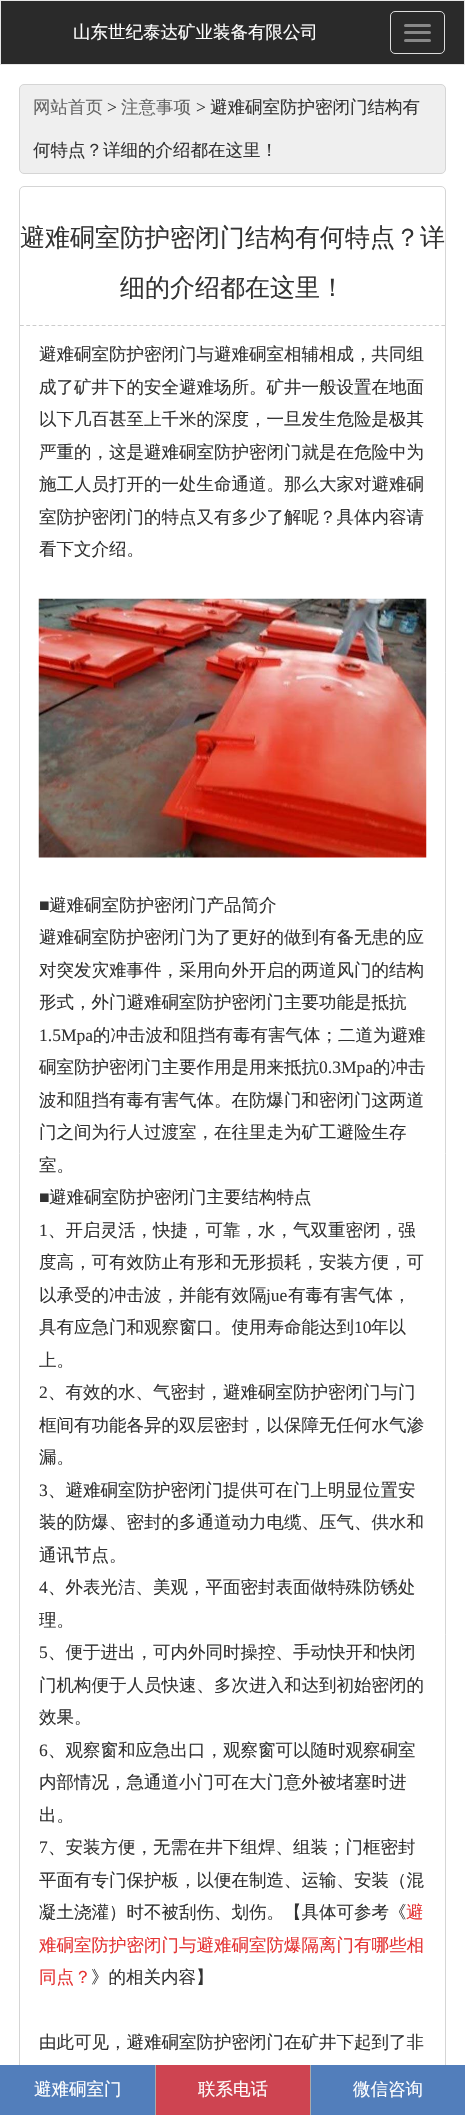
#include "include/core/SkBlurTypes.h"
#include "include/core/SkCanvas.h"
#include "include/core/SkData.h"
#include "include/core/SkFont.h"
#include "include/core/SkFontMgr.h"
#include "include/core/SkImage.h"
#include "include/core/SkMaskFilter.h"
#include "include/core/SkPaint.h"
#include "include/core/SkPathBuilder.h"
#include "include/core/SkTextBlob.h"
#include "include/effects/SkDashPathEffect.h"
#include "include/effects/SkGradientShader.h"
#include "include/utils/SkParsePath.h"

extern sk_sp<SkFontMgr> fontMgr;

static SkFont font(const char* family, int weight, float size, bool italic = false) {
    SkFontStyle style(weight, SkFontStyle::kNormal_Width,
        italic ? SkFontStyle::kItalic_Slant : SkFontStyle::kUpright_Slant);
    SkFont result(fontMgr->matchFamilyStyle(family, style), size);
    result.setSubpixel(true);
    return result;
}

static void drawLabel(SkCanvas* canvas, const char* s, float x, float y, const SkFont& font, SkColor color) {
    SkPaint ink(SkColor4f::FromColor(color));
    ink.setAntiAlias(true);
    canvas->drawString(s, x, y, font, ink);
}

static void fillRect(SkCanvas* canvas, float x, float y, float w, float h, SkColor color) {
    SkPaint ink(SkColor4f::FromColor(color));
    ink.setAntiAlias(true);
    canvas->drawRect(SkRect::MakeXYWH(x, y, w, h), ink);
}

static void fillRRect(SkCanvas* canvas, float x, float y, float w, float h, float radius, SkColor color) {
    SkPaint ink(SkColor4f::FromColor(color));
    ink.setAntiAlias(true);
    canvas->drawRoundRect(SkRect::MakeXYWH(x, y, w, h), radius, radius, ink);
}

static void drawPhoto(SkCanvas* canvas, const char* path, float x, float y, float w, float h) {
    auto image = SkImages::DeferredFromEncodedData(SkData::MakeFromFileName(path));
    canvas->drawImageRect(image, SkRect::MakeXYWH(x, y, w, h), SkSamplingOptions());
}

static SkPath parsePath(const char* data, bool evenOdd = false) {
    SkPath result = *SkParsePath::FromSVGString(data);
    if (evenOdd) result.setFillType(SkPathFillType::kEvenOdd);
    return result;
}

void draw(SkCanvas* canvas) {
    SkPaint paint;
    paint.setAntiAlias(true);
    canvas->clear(0xFFFFFFFF);
    paint.setColor(0xFF2A2A2A);
    canvas->drawRect(SkRect::MakeXYWH(0.5f, 0.5f, 464, 64), paint);
    paint.setStroke(true);
    paint.setStrokeWidth(1);
    paint.setColor(0xFFE7E7E7);
    canvas->drawRect(SkRect::MakeXYWH(0.5f, 0.5f, 464, 64), paint);
    SkFont font1 = font("WenQuanYi Zen Hei", 500, 17.5f);
    drawLabel(canvas, "山东世纪泰达矿业装备有限公司", 73, 38, font1, 0xFFFFFFFF);
    paint.setColor(0xFFDDDDDD);
    canvas->drawRoundRect(SkRect::MakeXYWH(390.5f, 11.5f, 54, 42), 4.5f, 4.5f, paint);
    fillRRect(canvas, 404, 24, 27, 3, 1.5f, 0xFF888888);
    fillRRect(canvas, 404, 31, 27, 3, 1.5f, 0xFF888888);
    fillRRect(canvas, 404, 39, 27, 3, 1.5f, 0xFF888888);
    paint.setStroke(false);
    paint.setColor(0xFFEFEFEF);
    canvas->drawRoundRect(SkRect::MakeXYWH(19.5f, 84.5f, 426, 89), 4.5f, 4.5f, paint);
    paint.setStroke(true);
    paint.setColor(0xFFD5D5D5);
    canvas->drawRoundRect(SkRect::MakeXYWH(19.5f, 84.5f, 426, 89), 4.5f, 4.5f, paint);
    drawLabel(canvas, "网站首页", 33, 113, font1, 0xFF666666);
    SkFont font2 = font("Liberation Serif", 400, 17.5f);
    drawLabel(canvas, ">", 107, 113, font2, 0xFF333333);
    drawLabel(canvas, "注意事项", 121, 113, font1, 0xFF666666);
    drawLabel(canvas, ">", 196, 113, font2, 0xFF333333);
    drawLabel(canvas, "避难硐室防护密闭门结构有", 210, 113, font1, 0xFF333333);
    drawLabel(canvas, "何特点？详细的介绍都在这里！", 33, 156, font1, 0xFF333333);
    canvas->drawRoundRect(SkRect::MakeXYWH(19.5f, 186.5f, 426, 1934), 4.5f, 4.5f, paint);
    paint.setStrokeWidth(1.2f);
    paint.setColor(0xFFCCCCCC);
    paint.setPathEffect(SkDashPathEffect::Make({{3.75f, 2.54f}}, 0));
    canvas->drawPath(parsePath("M20 325.5H445"), paint);
    paint.setPathEffect(nullptr);
    SkFont font3 = font("WenQuanYi Zen Hei", 500, 25);
    drawLabel(canvas, "避难硐室防护密闭门结构有何特点？详", 20, 246, font3, 0xFF333333);
    drawLabel(canvas, "细的介绍都在这里！", 120, 296, font3, 0xFF333333);
    drawLabel(canvas, "避难硐室防护密闭门与避难硐室相辅相成，共同组", 39, 360, font1, 0xFF333333);
    drawLabel(canvas, "成了矿井下的安全避难场所。矿井一般设置在地面", 39, 393, font1, 0xFF333333);
    drawLabel(canvas, "以下几百甚至上千米的深度，一旦发生危险是极其", 39, 425, font1, 0xFF333333);
    drawLabel(canvas, "严重的，这是避难硐室防护密闭门就是在危险中为", 39, 458, font1, 0xFF333333);
    drawLabel(canvas, "施工人员打开的一处生命通道。那么大家对避难硐", 39, 490, font1, 0xFF333333);
    drawLabel(canvas, "室防护密闭门的特点又有多少了解呢？具体内容请", 39, 523, font1, 0xFF333333);
    drawLabel(canvas, "看下文介绍。", 39, 555, font1, 0xFF333333);
    drawPhoto(canvas, "assets/img1.png", 38, 598, 389, 260);
    drawLabel(canvas, "■", 39, 911, font2, 0xFF333333);
    drawLabel(canvas, "避难硐室防护密闭门产品简介", 49, 911, font1, 0xFF333333);
    drawLabel(canvas, "避难硐室防护密闭门为了更好的做到有备无患的应", 39, 943, font1, 0xFF333333);
    drawLabel(canvas, "对突发灾难事件，采用向外开启的两道风门的结构", 39, 976, font1, 0xFF333333);
    drawLabel(canvas, "形式，外门避难硐室防护密闭门主要功能是抵抗", 39, 1008, font1, 0xFF333333);
    drawLabel(canvas, "1.5Mpa", 39, 1041, font2, 0xFF333333);
    drawLabel(canvas, "的冲击波和阻挡有毒有害气体；二道为避难", 93, 1041, font1, 0xFF333333);
    drawLabel(canvas, "硐室防护密闭门主要作用是用来抵抗", 39, 1073, font1, 0xFF333333);
    drawLabel(canvas, "0.3Mpa", 319, 1073, font2, 0xFF333333);
    drawLabel(canvas, "的冲击", 373, 1073, font1, 0xFF333333);
    drawLabel(canvas, "波和阻挡有毒有害气体。在防爆门和密闭门这两道", 39, 1106, font1, 0xFF333333);
    drawLabel(canvas, "门之间为行人过渡室，在往里走为矿工避险生存", 39, 1138, font1, 0xFF333333);
    drawLabel(canvas, "室。", 39, 1171, font1, 0xFF333333);
    drawLabel(canvas, "■", 39, 1203, font2, 0xFF333333);
    drawLabel(canvas, "避难硐室防护密闭门主要结构特点", 49, 1203, font1, 0xFF333333);
    drawLabel(canvas, "1", 39, 1236, font2, 0xFF333333);
    drawLabel(canvas, "、开启灵活，快捷，可靠，水，气双重密闭，强", 48, 1236, font1, 0xFF333333);
    drawLabel(canvas, "度高，可有效防止有形和无形损耗，安装方便，可", 39, 1268, font1, 0xFF333333);
    drawLabel(canvas, "以承受的冲击波，并能有效隔", 39, 1301, font1, 0xFF333333);
    drawLabel(canvas, "jue", 266, 1301, font2, 0xFF333333);
    drawLabel(canvas, "有毒有害气体，", 288, 1301, font1, 0xFF333333);
    drawLabel(canvas, "具有应急门和观察窗口。使用寿命能达到", 39, 1333, font1, 0xFF333333);
    drawLabel(canvas, "10", 354, 1333, font2, 0xFF333333);
    drawLabel(canvas, "年以", 371, 1333, font1, 0xFF333333);
    drawLabel(canvas, "上。", 39, 1366, font1, 0xFF333333);
    drawLabel(canvas, "2", 39, 1398, font2, 0xFF333333);
    drawLabel(canvas, "、有效的水、气密封，避难硐室防护密闭门与门", 48, 1398, font1, 0xFF333333);
    drawLabel(canvas, "框间有功能各异的双层密封，以保障无任何水气渗", 39, 1431, font1, 0xFF333333);
    drawLabel(canvas, "漏。", 39, 1463, font1, 0xFF333333);
    drawLabel(canvas, "3", 39, 1496, font2, 0xFF333333);
    drawLabel(canvas, "、避难硐室防护密闭门提供可在门上明显位置安", 48, 1496, font1, 0xFF333333);
    drawLabel(canvas, "装的防爆、密封的多通道动力电缆、压气、供水和", 39, 1528, font1, 0xFF333333);
    drawLabel(canvas, "通讯节点。", 39, 1561, font1, 0xFF333333);
    drawLabel(canvas, "4", 39, 1593, font2, 0xFF333333);
    drawLabel(canvas, "、外表光洁、美观，平面密封表面做特殊防锈处", 48, 1593, font1, 0xFF333333);
    drawLabel(canvas, "理。", 39, 1626, font1, 0xFF333333);
    drawLabel(canvas, "5", 39, 1658, font2, 0xFF333333);
    drawLabel(canvas, "、便于进出，可内外同时操控、手动快开和快闭", 48, 1658, font1, 0xFF333333);
    drawLabel(canvas, "门机构便于人员快速、多次进入和达到初始密闭的", 39, 1691, font1, 0xFF333333);
    drawLabel(canvas, "效果。", 39, 1723, font1, 0xFF333333);
    drawLabel(canvas, "6", 39, 1756, font2, 0xFF333333);
    drawLabel(canvas, "、观察窗和应急出口，观察窗可以随时观察硐室", 48, 1756, font1, 0xFF333333);
    drawLabel(canvas, "内部情况，急通道小门可在大门意外被堵塞时进", 39, 1788, font1, 0xFF333333);
    drawLabel(canvas, "出。", 39, 1821, font1, 0xFF333333);
    drawLabel(canvas, "7", 39, 1853, font2, 0xFF333333);
    drawLabel(canvas, "、安装方便，无需在井下组焊、组装；门框密封", 48, 1853, font1, 0xFF333333);
    drawLabel(canvas, "平面有专门保护板，以便在制造、运输、安装（混", 39, 1886, font1, 0xFF333333);
    drawLabel(canvas, "凝土浇灌）时不被刮伤、划伤。【具体可参考《", 39, 1918, font1, 0xFF333333);
    drawLabel(canvas, "避", 406, 1918, font1, 0xFFE53333);
    drawLabel(canvas, "难硐室防护密闭门与避难硐室防爆隔离门有哪些相", 39, 1951, font1, 0xFFE53333);
    drawLabel(canvas, "同点？", 39, 1983, font1, 0xFFE53333);
    drawLabel(canvas, "》的相关内容】", 91, 1983, font1, 0xFF333333);
    drawLabel(canvas, "由此可见，避难硐室防护密闭门在矿井下起到了非", 39, 2048, font1, 0xFF333333);
    fillRect(canvas, 0, 2065, 465, 50, 0xFF527EBB);
    drawLabel(canvas, "避难硐室门", 34, 2095, font1, 0xFFFFFFFF);
    fillRect(canvas, 156, 2065, 154, 50, 0xFFCE4451);
    fillRect(canvas, 155, 2065, 1, 50, 0xFFAAAAAA);
    drawLabel(canvas, "联系电话", 198, 2095, font1, 0xFFFFFFFF);
    fillRect(canvas, 310, 2065, 1, 50, 0xFFAAAAAA);
    drawLabel(canvas, "微信咨询", 353, 2095, font1, 0xFFFFFFFF);
}
